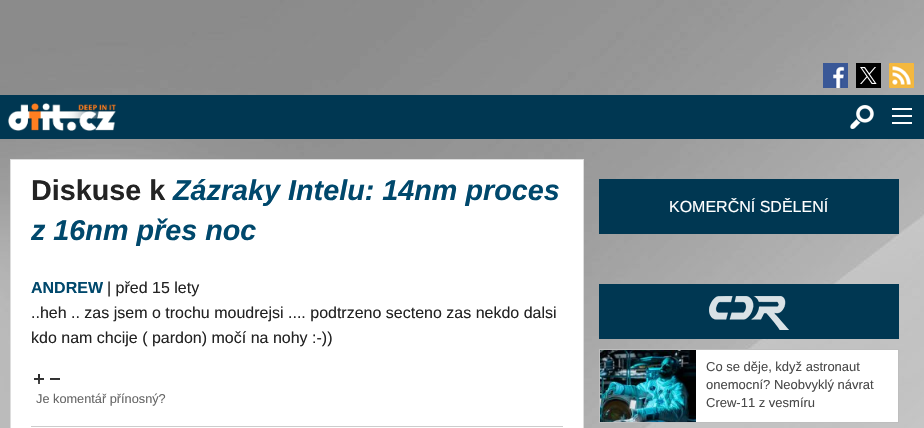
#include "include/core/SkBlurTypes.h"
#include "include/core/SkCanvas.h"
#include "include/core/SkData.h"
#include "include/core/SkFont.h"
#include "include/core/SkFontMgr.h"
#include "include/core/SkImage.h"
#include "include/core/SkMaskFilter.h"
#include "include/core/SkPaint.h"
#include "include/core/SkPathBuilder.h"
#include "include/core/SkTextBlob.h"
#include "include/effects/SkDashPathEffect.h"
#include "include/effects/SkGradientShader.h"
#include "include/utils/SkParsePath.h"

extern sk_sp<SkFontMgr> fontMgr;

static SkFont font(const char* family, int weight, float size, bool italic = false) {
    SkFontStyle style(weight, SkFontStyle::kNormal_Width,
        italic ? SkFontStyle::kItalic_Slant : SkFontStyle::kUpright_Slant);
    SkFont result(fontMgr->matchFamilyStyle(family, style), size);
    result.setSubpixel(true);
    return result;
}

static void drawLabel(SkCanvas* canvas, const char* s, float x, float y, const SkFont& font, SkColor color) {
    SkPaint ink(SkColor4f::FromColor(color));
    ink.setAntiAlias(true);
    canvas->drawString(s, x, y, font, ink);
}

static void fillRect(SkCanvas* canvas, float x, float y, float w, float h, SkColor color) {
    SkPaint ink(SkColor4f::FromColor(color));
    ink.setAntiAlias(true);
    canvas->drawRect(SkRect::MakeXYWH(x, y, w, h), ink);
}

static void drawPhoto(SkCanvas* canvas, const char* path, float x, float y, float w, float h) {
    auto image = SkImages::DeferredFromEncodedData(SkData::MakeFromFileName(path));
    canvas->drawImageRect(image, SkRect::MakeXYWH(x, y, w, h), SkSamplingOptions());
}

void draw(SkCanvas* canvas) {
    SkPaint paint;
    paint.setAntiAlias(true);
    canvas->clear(0xFFFFFFFF);
    drawPhoto(canvas, "assets/img1.png", 0, 0, 924, 428);
    drawPhoto(canvas, "assets/img2.png", 823, 63, 25, 25);
    fillRect(canvas, 856, 63, 25, 25, 0xFF000000);
    drawPhoto(canvas, "assets/img3.png", 860, 67, 17, 17);
    drawPhoto(canvas, "assets/img4.png", 889, 63, 25, 25);
    fillRect(canvas, 0, 95, 924, 44, 0xFF003752);
    drawPhoto(canvas, "assets/img5.png", 8, 103, 108, 28);
    drawPhoto(canvas, "assets/img6.png", 850, 105, 24, 24);
    fillRect(canvas, 892, 122, 20, 2, 0xFFFEFEFE);
    fillRect(canvas, 892, 115, 20, 2, 0xFFFEFEFE);
    fillRect(canvas, 892, 108, 20, 2, 0xFFFEFEFE);
    paint.setColor(0xFFFFFFFF);
    canvas->drawRect(SkRect::MakeXYWH(10.5f, 159.5f, 573, 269), paint);
    paint.setStroke(true);
    paint.setStrokeWidth(1);
    paint.setColor(0xFFDDDDDD);
    canvas->drawRect(SkRect::MakeXYWH(10.5f, 159.5f, 573, 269), paint);
    SkFont font1 = font("Liberation Sans", 700, 28.75f);
    drawLabel(canvas, "Diskuse k", 31, 200, font1, 0xFF232323);
    SkFont font2 = font("Liberation Sans", 700, 28.75f, true);
    drawLabel(canvas, "Zázraky Intelu: 14nm proces", 173, 200, font2, 0xFF00486C);
    drawLabel(canvas, "z 16nm přes noc", 31, 240, font2, 0xFF00486C);
    fillRect(canvas, 31, 426, 532, 1, 0xFFCCCCCC);
    SkFont font3 = font("Liberation Sans", 700, 16);
    drawLabel(canvas, "ANDREW", 31, 293, font3, 0xFF00486C);
    SkFont font4 = font("Liberation Sans", 400, 16);
    drawLabel(canvas, "| před 15 lety", 107, 293, font4, 0xFF232323);
    drawLabel(canvas, "..heh .. zas jsem o trochu moudrejsi .... podtrzeno secteno zas nekdo dalsi", 31, 318, font4, 0xFF232323);
    drawLabel(canvas, "kdo nam chcije ( pardon) močí na nohy :-))", 31, 343, font4, 0xFF232323);
    drawPhoto(canvas, "assets/img7.png", 34, 374, 10, 10);
    drawPhoto(canvas, "assets/img8.png", 50, 378, 10, 2);
    SkFont font5 = font("Liberation Sans", 400, 12.75f);
    drawLabel(canvas, "Je komentář přínosný?", 36, 403, font5, 0xFF666666);
    fillRect(canvas, 599, 179, 300, 55, 0xFF003752);
    drawLabel(canvas, "KOMERČNÍ SDĚLENÍ", 669, 212, font4, 0xFFFFFFFF);
    fillRect(canvas, 599, 284, 300, 55, 0xFF003752);
    drawPhoto(canvas, "assets/img9.png", 709, 296, 80, 34);
    fillRect(canvas, 696, 350, 202, 72, 0xFFFFFFFF);
    paint.setColor(0xFFBEBEBE);
    canvas->drawRect(SkRect::MakeXYWH(599.5f, 349.5f, 299, 73), paint);
    drawPhoto(canvas, "assets/img10.png", 600, 350, 96, 72);
    SkFont font6 = font("Liberation Sans", 400, 13);
    drawLabel(canvas, "Co se děje, když astronaut", 706, 371, font6, 0xFF494949);
    drawLabel(canvas, "onemocní? Neobvyklý návrat", 706, 389, font6, 0xFF494949);
    drawLabel(canvas, "Crew-11 z vesmíru", 706, 407, font6, 0xFF494949);
}
